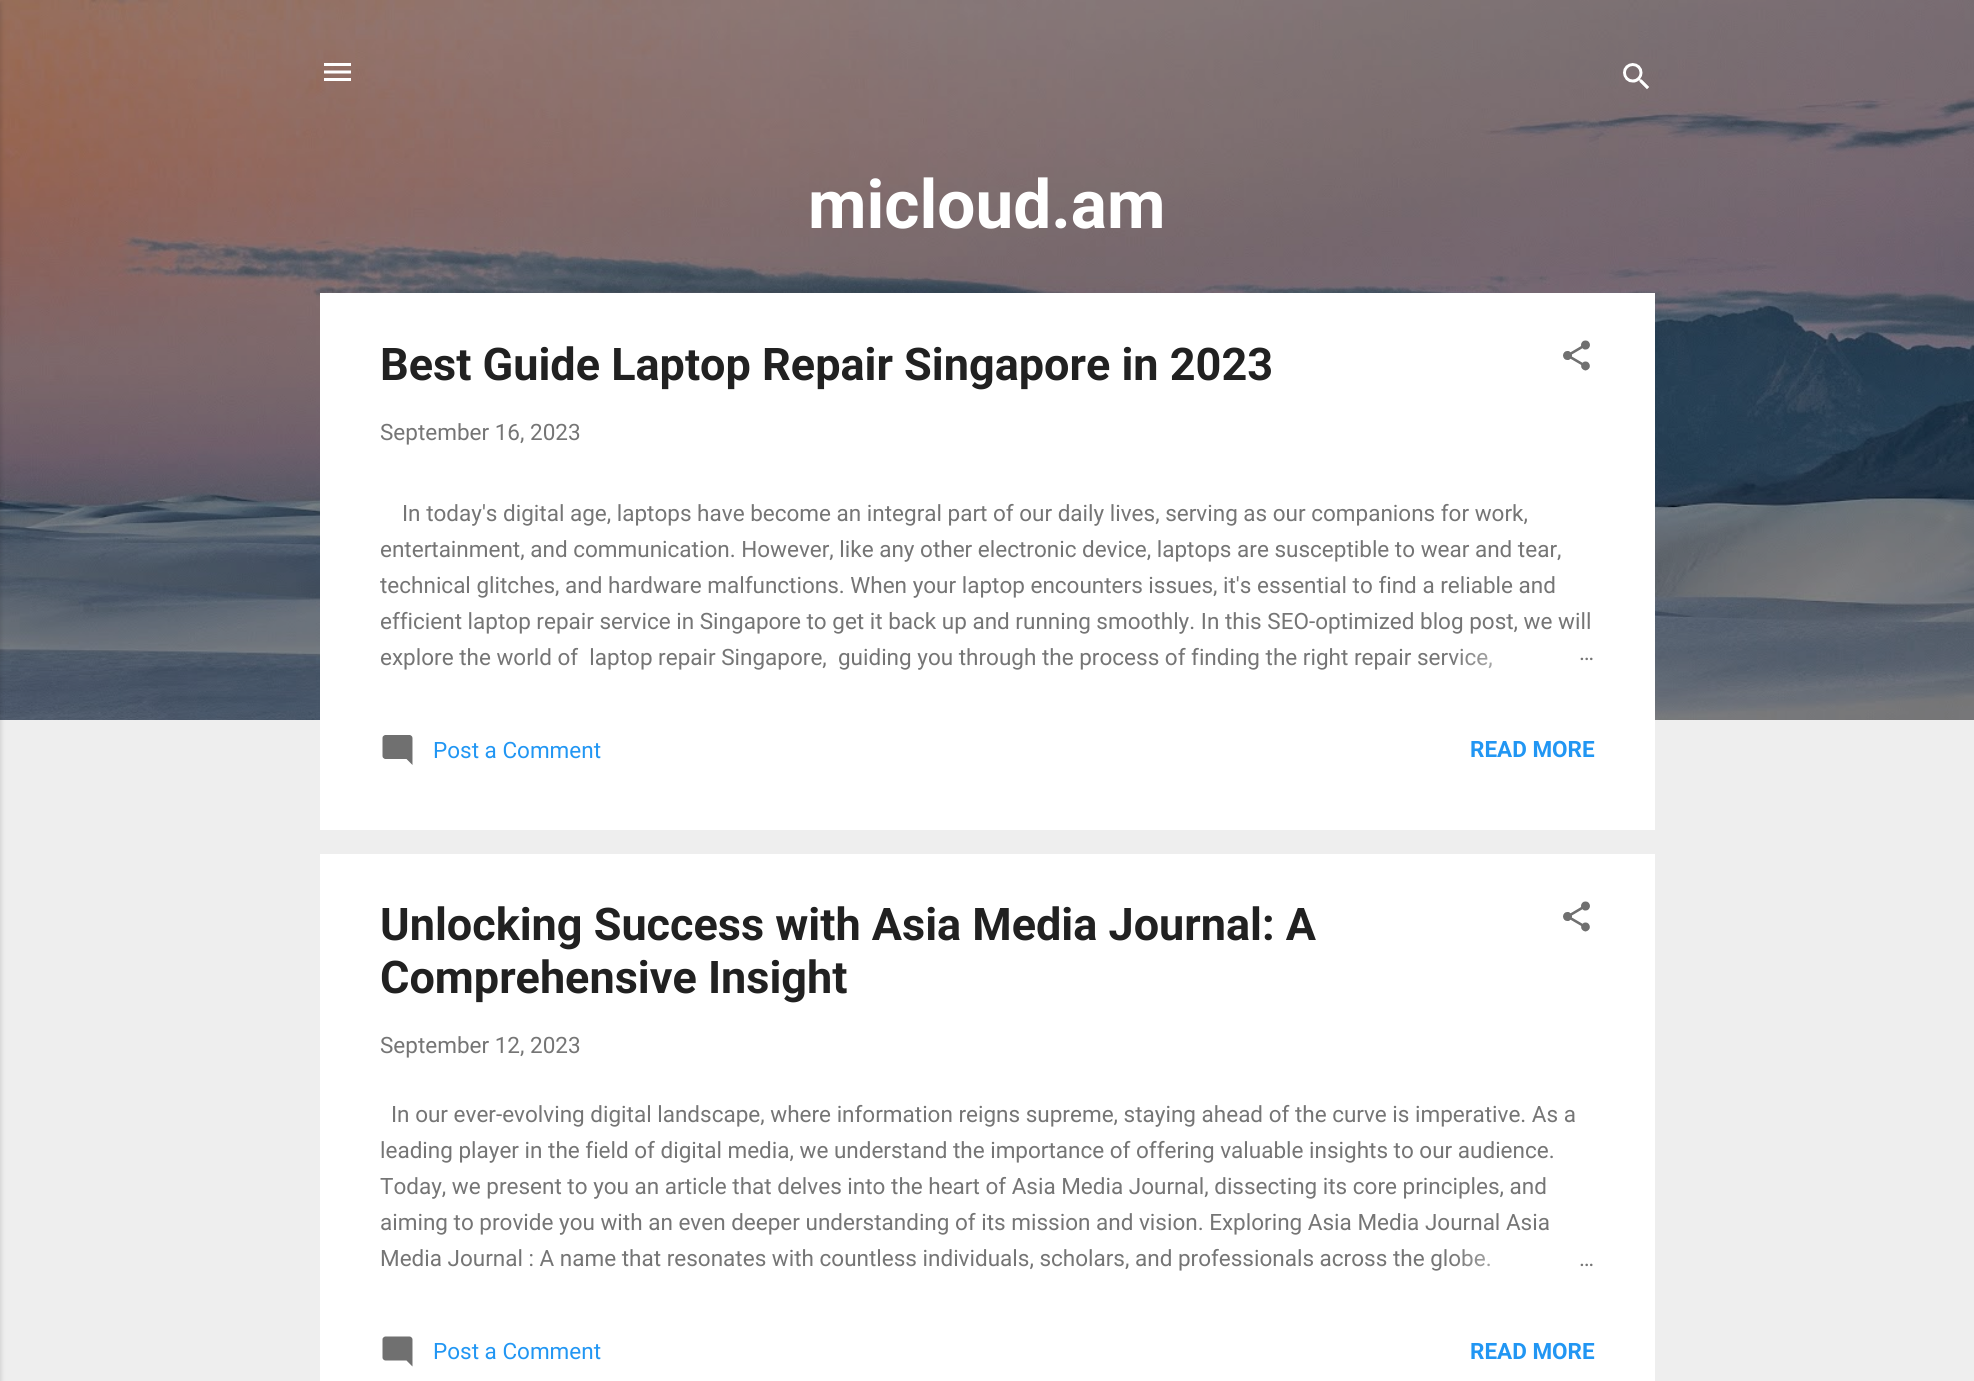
import math
import cairo

surface = cairo.ImageSurface(cairo.Format.RGB24, 1974, 1381)
ctx = cairo.Context(surface)
options = cairo.FontOptions()
options.set_hint_metrics(cairo.HintMetrics.OFF)
options.set_hint_style(cairo.HintStyle.NONE)
ctx.set_font_options(options)
ctx.set_miter_limit(4)


def ink(r, g, b):
    ctx.set_source_rgb(r / 255, g / 255, b / 255)


def write(x, y, s, family, size, color, bold=False, italic=False):
    ctx.select_font_face(family, cairo.FontSlant.ITALIC if italic else cairo.FontSlant.NORMAL, cairo.FontWeight.BOLD if bold else cairo.FontWeight.NORMAL)
    ctx.set_font_size(size)
    ink(*color)
    ctx.move_to(x, y)
    ctx.show_text(s)


def block(x, y, w, h, *color):
    ink(*color)
    ctx.rectangle(x, y, w, h)
    ctx.fill()


def round_path(x, y, w, h, r):
    ctx.new_sub_path()
    for i, (u, v) in enumerate([(x + w - r, y + h - r), (x + r, y + h - r), (x + r, y + r), (x + w - r, y + r)]):
        ctx.arc(u, v, r, i * math.pi / 2, (i + 1) * math.pi / 2)
    ctx.close_path()


def blur_box(x, y, w, h, r, blur, alpha):
    ctx.push_group_with_content(cairo.Content.ALPHA)
    ctx.set_operator(cairo.Operator.SOURCE)
    for i in range(15, -16, -2):
        e = blur * i / 6
        if min(w, h) + 2 * e > 0:
            ctx.set_source_rgba(0, 0, 0, alpha * math.erfc((i - 1) / 8.5) / 2)
            round_path(x - e, y - e, w + 2 * e, h + 2 * e, max(0, min(r + e + blur * .6, min(w, h) / 2 + e)))
            ctx.fill()
    ctx.mask(ctx.pop_group())


def paste(path, x, y, w, h):
    ctx.save()
    ctx.set_source_surface(cairo.ImageSurface.create_from_png(path), x, y)
    ctx.rectangle(x, y, w, h)
    ctx.fill()
    ctx.restore()


s1 = dict(family="Roboto", size=67.5, color=(255, 255, 255), bold=True)
s2 = dict(family="Roboto", size=45, color=(33, 33, 33), bold=True)
s3 = dict(family="Roboto", size=22.5, color=(117, 117, 117))
s4 = dict(family="Roboto", size=22.5, color=(33, 150, 243))
s5 = dict(family="Roboto", size=22.5, color=(33, 150, 243), bold=True)

ink(238, 238, 238)
ctx.paint()
paste("pic1.png", 0, 0, 1974, 720)
ink(0, 0, 0)
blur_box(-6, 2, 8, 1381, 0, 2, 0.1)
paste("pic2.png", 324, 63, 27, 18)
paste("pic3.png", 1623, 63, 26, 27)
write(808, 228, "micloud.am", **s1)
block(320, 293, 1335, 537, 255, 255, 255)
write(380, 380, "Best Guide Laptop Repair Singapore in 2023", **s2)
paste("pic4.png", 1563, 340, 27, 31)
write(380, 440, "September 16, 2023", **s3)
write(402, 521, "In today's digital age, laptops have become an integral part of our daily lives, serving as our companions for work,", **s3)
write(380, 557, "entertainment, and communication. However, like any other electronic device, laptops are susceptible to wear and tear,", **s3)
write(380, 593, "technical glitches, and hardware malfunctions. When your laptop encounters issues, it's essential to find a reliable and", **s3)
write(380, 629, "efficient laptop repair service in Singapore to get it back up and running smoothly. In this SEO-optimized blog post, we will", **s3)
write(380, 665, "explore the world of  laptop repair Singapore,  guiding you through the process of finding the right repair service,", **s3)
gradient = cairo.LinearGradient(1595, 657, 1451, 657)
gradient.add_color_stop_rgba(0, 1, 1, 1, 1)
gradient.add_color_stop_rgba(0.2, 1, 1, 1, 1)
gradient.add_color_stop_rgba(1, 1, 1, 1, 0)
ctx.set_source(gradient)
ctx.rectangle(1453, 649, 39, 19)
ctx.fill()
write(1579, 660, "…", **s3)
paste("pic5.png", 382, 735, 31, 30)
write(433, 758, "Post a Comment", **s4)
write(1470, 757, "READ MORE", **s5)
block(320, 854, 1335, 527, 255, 255, 255)
write(380, 940, "Unlocking Success with Asia Media Journal: A", **s2)
write(380, 993, "Comprehensive Insight", **s2)
paste("pic4.png", 1563, 901, 27, 31)
write(380, 1053, "September 12, 2023", **s3)
write(391, 1122, "In our ever-evolving digital landscape, where information reigns supreme, staying ahead of the curve is imperative. As a", **s3)
write(380, 1158, "leading player in the field of digital media, we understand the importance of offering valuable insights to our audience.", **s3)
write(380, 1194, "Today, we present to you an article that delves into the heart of Asia Media Journal, dissecting its core principles, and", **s3)
write(380, 1230, "aiming to provide you with an even deeper understanding of its mission and vision. Exploring Asia Media Journal Asia", **s3)
write(380, 1266, "Media Journal : A name that resonates with countless individuals, scholars, and professionals across the globe.", **s3)
gradient = cairo.LinearGradient(1595, 1259, 1451, 1259)
gradient.add_color_stop_rgba(0, 1, 1, 1, 1)
gradient.add_color_stop_rgba(0.2, 1, 1, 1, 1)
gradient.add_color_stop_rgba(1, 1, 1, 1, 0)
ctx.set_source(gradient)
ctx.rectangle(1453, 1249, 37, 18)
ctx.fill()
write(1579, 1266, "…", **s3)
paste("pic6.png", 382, 1336, 31, 31)
write(433, 1359, "Post a Comment", **s4)
write(1470, 1359, "READ MORE", **s5)
surface.write_to_png("screenshot.png")
